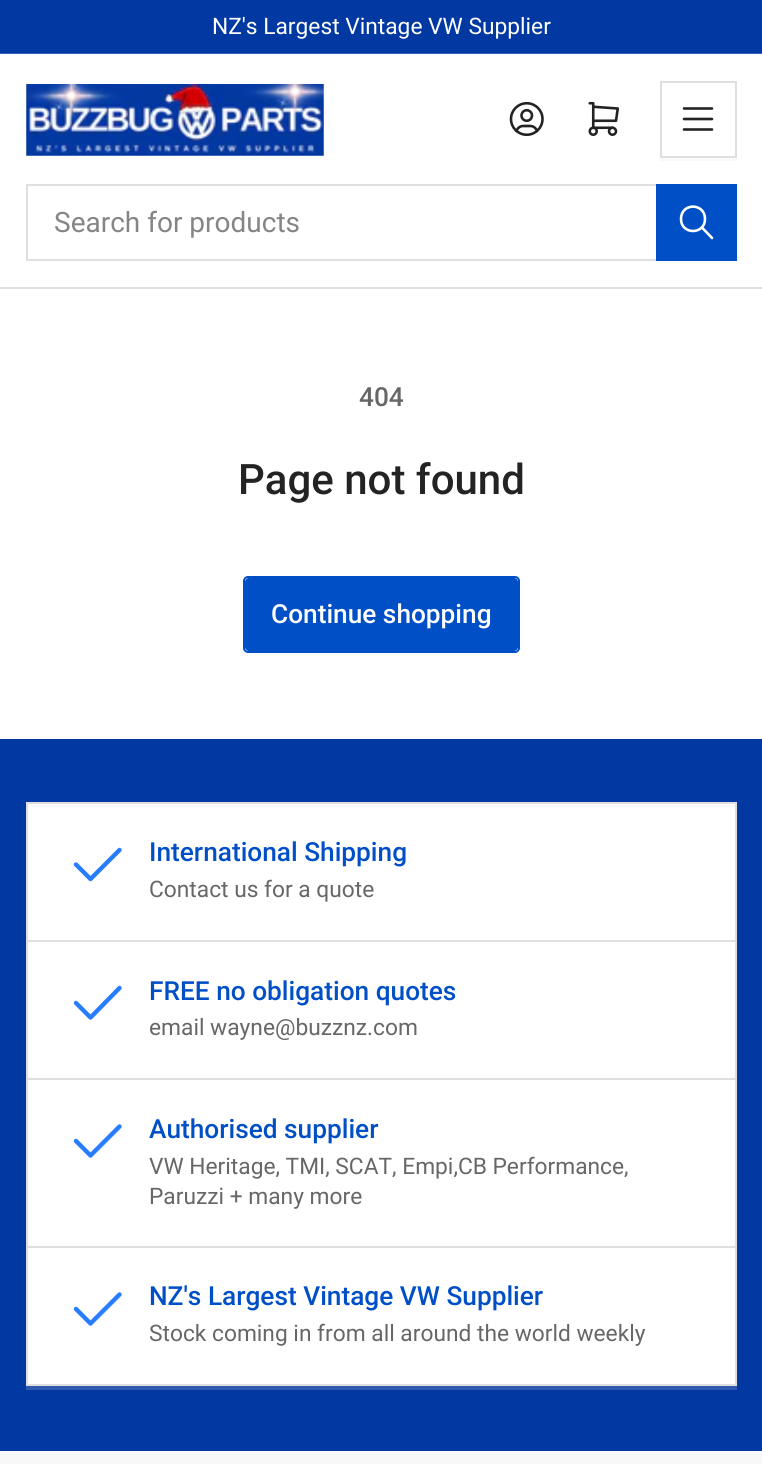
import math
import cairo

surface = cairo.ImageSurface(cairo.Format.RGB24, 762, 1464)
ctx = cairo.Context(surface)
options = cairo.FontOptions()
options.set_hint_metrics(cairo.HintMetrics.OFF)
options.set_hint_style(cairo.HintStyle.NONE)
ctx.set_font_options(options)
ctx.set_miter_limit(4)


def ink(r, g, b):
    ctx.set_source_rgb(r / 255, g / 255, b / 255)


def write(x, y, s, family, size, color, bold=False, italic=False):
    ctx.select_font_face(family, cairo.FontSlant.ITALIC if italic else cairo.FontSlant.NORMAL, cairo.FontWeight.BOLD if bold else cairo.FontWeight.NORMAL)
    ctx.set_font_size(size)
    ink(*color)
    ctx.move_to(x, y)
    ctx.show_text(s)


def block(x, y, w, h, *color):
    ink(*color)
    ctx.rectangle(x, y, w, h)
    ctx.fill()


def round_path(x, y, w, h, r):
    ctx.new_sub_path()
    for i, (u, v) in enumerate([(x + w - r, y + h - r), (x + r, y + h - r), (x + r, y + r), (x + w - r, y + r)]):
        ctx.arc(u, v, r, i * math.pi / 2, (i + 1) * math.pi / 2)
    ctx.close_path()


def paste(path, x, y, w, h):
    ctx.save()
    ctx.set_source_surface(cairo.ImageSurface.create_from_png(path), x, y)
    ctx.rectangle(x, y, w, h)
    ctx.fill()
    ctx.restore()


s1 = dict(family="Roboto", size=22.75, color=(255, 255, 255))
s2 = dict(family="Roboto", size=28, color=(133, 133, 133))
s3 = dict(family="Roboto Medium", size=26.25, color=(103, 103, 103))
s4 = dict(family="Roboto Medium", size=42, color=(35, 35, 35))
s5 = dict(family="Roboto Medium", size=26.25, color=(255, 255, 255))
s6 = dict(family="Roboto Medium", size=26.25, color=(0, 79, 199))
s7 = dict(family="Roboto", size=22.75, color=(103, 103, 103))

ink(255, 255, 255)
ctx.paint()
block(0, 0, 762, 53, 2, 56, 162)
block(0, 53, 762, 1, 53, 96, 181)
write(212, 34, "NZ's Largest Vintage VW Supplier", **s1)
block(0, 287, 762, 2, 223, 223, 223)
paste("pic1.png", 26, 84, 298, 72)
paste("pic2.png", 509, 101, 35, 36)
paste("pic3.png", 588, 101, 31, 35)
ink(249, 249, 249)
ctx.new_path()
ctx.move_to(660, 158)
ctx.line_to(660, 161)
ctx.line_to(737, 161)
ctx.line_to(737, 84)
ctx.line_to(737, 158)
ctx.close_path()
ctx.fill()
ctx.rectangle(661, 82, 75, 75)
ink(223, 223, 223)
ctx.stroke()
ctx.new_path()
ctx.move_to(684, 108.5)
ctx.line_to(712, 108.5)
ctx.move_to(684, 119)
ctx.line_to(712, 119)
ctx.move_to(684, 129.5)
ctx.line_to(712, 129.5)
ink(35, 35, 35)
ctx.set_line_width(2.6)
ctx.set_line_cap(cairo.LineCap.ROUND)
ctx.set_line_join(cairo.LineJoin.ROUND)
ctx.stroke()
ctx.rectangle(27, 185, 709, 75)
ink(223, 223, 223)
ctx.set_line_width(2)
ctx.set_line_cap(cairo.LineCap.BUTT)
ctx.set_line_join(cairo.LineJoin.MITER)
ctx.stroke()
write(54, 232, "Search for products", **s2)
ctx.rectangle(657, 185, 79, 75)
ink(0, 79, 199)
ctx.stroke()
block(658, 186, 77, 73, 0, 79, 199)
ctx.new_path()
ctx.move_to(681, 219)
ctx.curve_to(681, 235, 705, 235, 705, 219)
ctx.curve_to(705, 202.5, 681, 202.5, 681, 219)
ctx.move_to(712, 238)
ctx.line_to(702, 227.5)
ink(255, 255, 255)
ctx.set_line_width(2.6)
ctx.set_line_cap(cairo.LineCap.ROUND)
ctx.set_line_join(cairo.LineJoin.ROUND)
ctx.stroke()
write(359, 406, "404", **s3)
write(238, 494, "Page not found", **s4)
round_path(244, 577, 275, 75, 4)
ink(0, 79, 199)
ctx.set_line_width(2)
ctx.set_line_cap(cairo.LineCap.BUTT)
ctx.set_line_join(cairo.LineJoin.MITER)
ctx.stroke()
round_path(245, 578, 273, 73, 4)
ctx.fill()
write(271, 623, "Continue shopping", **s5)
block(0, 739, 762, 712, 2, 56, 162)
ink(255, 255, 255)
ctx.rectangle(27, 803, 709, 138)
ctx.fill_preserve()
ink(223, 223, 223)
ctx.stroke()
ctx.new_path()
ctx.move_to(76, 864.5)
ctx.line_to(90.5, 879)
ctx.line_to(119.5, 850)
ink(40, 125, 255)
ctx.set_line_width(4.4)
ctx.set_line_cap(cairo.LineCap.ROUND)
ctx.set_line_join(cairo.LineJoin.ROUND)
ctx.stroke()
write(149, 861, "International Shipping", **s6)
write(149, 897, "Contact us for a quote", **s7)
ink(255, 255, 255)
ctx.rectangle(27, 941, 709, 138)
ctx.fill_preserve()
ink(223, 223, 223)
ctx.set_line_width(2)
ctx.set_line_cap(cairo.LineCap.BUTT)
ctx.set_line_join(cairo.LineJoin.MITER)
ctx.stroke()
ctx.new_path()
ctx.move_to(76, 1003)
ctx.line_to(90.5, 1017.5)
ctx.line_to(119.5, 988)
ink(40, 125, 255)
ctx.set_line_width(4.4)
ctx.set_line_cap(cairo.LineCap.ROUND)
ctx.set_line_join(cairo.LineJoin.ROUND)
ctx.stroke()
write(149, 1000, "FREE no obligation quotes", **s6)
write(149, 1035, "email wayne@buzznz.com", **s7)
ink(255, 255, 255)
ctx.rectangle(27, 1079, 709, 168)
ctx.fill_preserve()
ink(223, 223, 223)
ctx.set_line_width(2)
ctx.set_line_cap(cairo.LineCap.BUTT)
ctx.set_line_join(cairo.LineJoin.MITER)
ctx.stroke()
ctx.new_path()
ctx.move_to(76, 1141)
ctx.line_to(90.5, 1155.5)
ctx.line_to(119.5, 1126.5)
ink(40, 125, 255)
ctx.set_line_width(4.4)
ctx.set_line_cap(cairo.LineCap.ROUND)
ctx.set_line_join(cairo.LineJoin.ROUND)
ctx.stroke()
write(149, 1138, "Authorised supplier", **s6)
write(149, 1174, "VW Heritage, TMI, SCAT, Empi,CB Performance,", **s7)
write(149, 1204, "Paruzzi + many more", **s7)
ink(46, 89, 174)
ctx.new_path()
ctx.move_to(26, 1250)
ctx.line_to(26, 1390)
ctx.line_to(737, 1390)
ctx.line_to(737, 1250)
ctx.line_to(737, 1386)
ctx.line_to(26, 1386)
ctx.close_path()
ctx.fill()
ink(255, 255, 255)
ctx.rectangle(27, 1247, 709, 138)
ctx.fill_preserve()
ink(223, 223, 223)
ctx.set_line_width(2)
ctx.set_line_cap(cairo.LineCap.BUTT)
ctx.set_line_join(cairo.LineJoin.MITER)
ctx.stroke()
ctx.new_path()
ctx.move_to(76, 1309)
ctx.line_to(90.5, 1323.5)
ctx.line_to(119.5, 1294.5)
ink(40, 125, 255)
ctx.set_line_width(4.4)
ctx.set_line_cap(cairo.LineCap.ROUND)
ctx.set_line_join(cairo.LineJoin.ROUND)
ctx.stroke()
write(149, 1305, "NZ's Largest Vintage VW Supplier", **s6)
write(149, 1341, "Stock coming in from all around the world weekly", **s7)
block(0, 1451, 762, 13, 248, 248, 248)
surface.write_to_png("screenshot.png")
